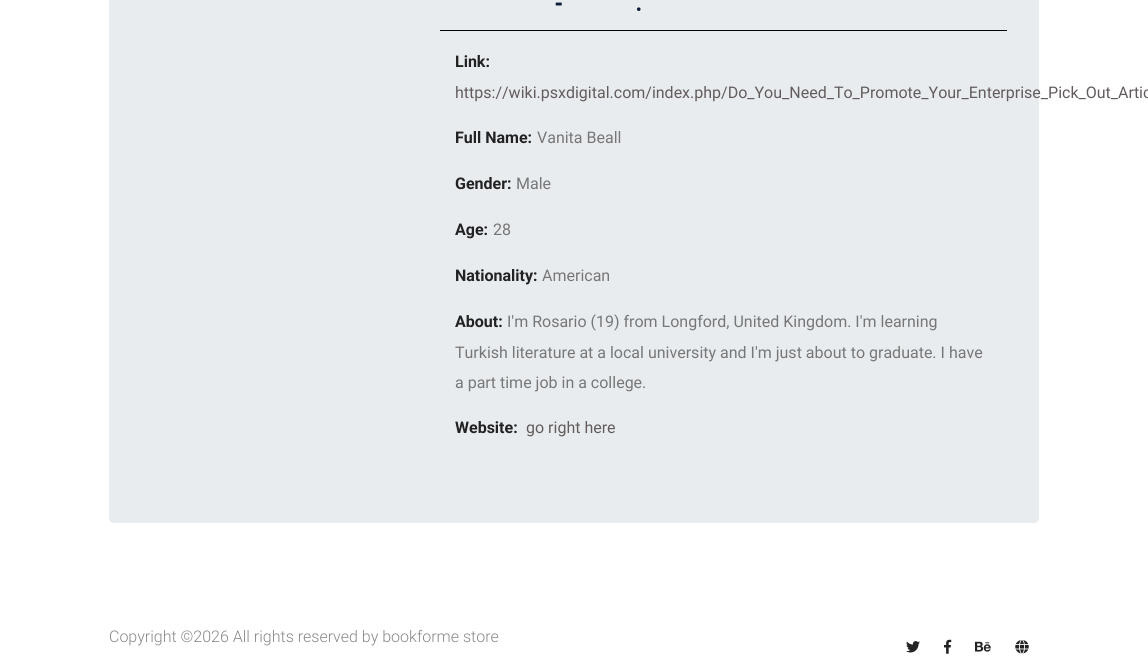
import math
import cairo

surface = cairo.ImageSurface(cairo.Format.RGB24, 1148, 664)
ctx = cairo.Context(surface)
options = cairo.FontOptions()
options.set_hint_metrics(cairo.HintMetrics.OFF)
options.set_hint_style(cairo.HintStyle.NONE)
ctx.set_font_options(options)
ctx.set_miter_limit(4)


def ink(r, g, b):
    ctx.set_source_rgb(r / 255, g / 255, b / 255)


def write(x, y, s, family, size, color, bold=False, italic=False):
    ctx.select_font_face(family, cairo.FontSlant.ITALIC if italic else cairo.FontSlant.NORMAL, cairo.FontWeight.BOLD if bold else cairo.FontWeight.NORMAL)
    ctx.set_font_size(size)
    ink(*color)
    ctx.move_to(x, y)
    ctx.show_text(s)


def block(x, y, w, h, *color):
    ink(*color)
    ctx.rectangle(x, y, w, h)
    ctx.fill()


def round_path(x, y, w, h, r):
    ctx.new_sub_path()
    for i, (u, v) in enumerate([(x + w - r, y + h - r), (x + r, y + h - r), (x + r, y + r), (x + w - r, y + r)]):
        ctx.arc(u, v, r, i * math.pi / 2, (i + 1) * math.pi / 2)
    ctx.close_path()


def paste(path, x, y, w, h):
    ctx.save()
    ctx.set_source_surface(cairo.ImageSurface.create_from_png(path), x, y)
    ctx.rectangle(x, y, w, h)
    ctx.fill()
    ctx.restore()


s1 = dict(family="Josefin Sans Medium", size=32, color=(11, 28, 57))
s2 = dict(family="Roboto", size=16, color=(34, 34, 34), bold=True)
s3 = dict(family="Roboto", size=16, color=(99, 92, 92))
s4 = dict(family="Roboto", size=16, color=(119, 119, 119))
s5 = dict(family="Roboto Light", size=16, color=(136, 136, 136))

ink(255, 255, 255)
ctx.paint()
ink(233, 236, 239)
round_path(109, -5, 930, 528, 5)
ctx.fill()
block(440, 30, 567, 1, 0, 0, 0)
write(554, 11, "-", **s1)
write(636, 11, ".", **s1)
write(455, 67, "Link:", **s2)
write(455, 98, "https://wiki.psxdigital.com/index.php/Do_You_Need_To_Promote_Your_Enterprise_Pick_Out_Artic", **s3)
write(455, 143, "Full Name:", **s2)
write(537, 143, "Vanita Beall", **s4)
write(455, 189, "Gender:", **s2)
write(516, 189, "Male", **s4)
write(455, 235, "Age:", **s2)
write(493, 235, "28", **s4)
write(455, 281, "Nationality:", **s2)
write(542, 281, "American", **s4)
write(455, 327, "About:", **s2)
write(507, 327, "I'm Rosario (19) from Longford, United Kingdom. I'm learning", **s4)
write(455, 358, "Turkish literature at a local university and I'm just about to graduate. I have", **s4)
write(455, 388, "a part time job in a college.", **s4)
write(455, 433, "Website:", **s2)
write(526, 433, "go right here", **s3)
write(109, 642, "Copyright ©2026 All rights reserved by bookforme store", **s5)
paste("pic1.png", 906, 641, 14, 12)
paste("pic2.png", 944, 639, 8, 15)
paste("pic3.png", 975, 641, 16, 11)
paste("pic4.png", 1015, 640, 14, 14)
surface.write_to_png("screenshot.png")
